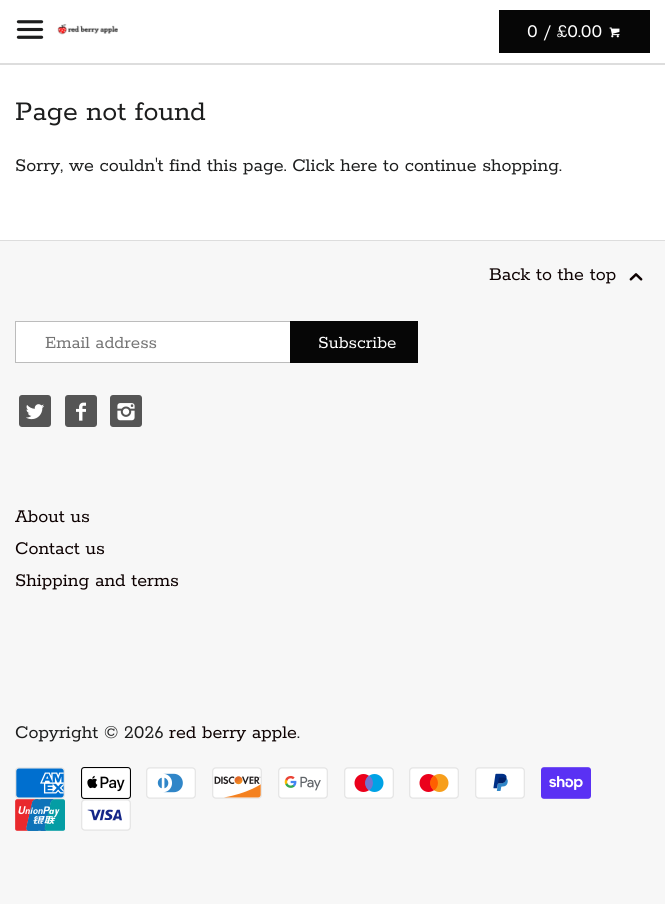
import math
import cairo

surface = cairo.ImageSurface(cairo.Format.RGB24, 665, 904)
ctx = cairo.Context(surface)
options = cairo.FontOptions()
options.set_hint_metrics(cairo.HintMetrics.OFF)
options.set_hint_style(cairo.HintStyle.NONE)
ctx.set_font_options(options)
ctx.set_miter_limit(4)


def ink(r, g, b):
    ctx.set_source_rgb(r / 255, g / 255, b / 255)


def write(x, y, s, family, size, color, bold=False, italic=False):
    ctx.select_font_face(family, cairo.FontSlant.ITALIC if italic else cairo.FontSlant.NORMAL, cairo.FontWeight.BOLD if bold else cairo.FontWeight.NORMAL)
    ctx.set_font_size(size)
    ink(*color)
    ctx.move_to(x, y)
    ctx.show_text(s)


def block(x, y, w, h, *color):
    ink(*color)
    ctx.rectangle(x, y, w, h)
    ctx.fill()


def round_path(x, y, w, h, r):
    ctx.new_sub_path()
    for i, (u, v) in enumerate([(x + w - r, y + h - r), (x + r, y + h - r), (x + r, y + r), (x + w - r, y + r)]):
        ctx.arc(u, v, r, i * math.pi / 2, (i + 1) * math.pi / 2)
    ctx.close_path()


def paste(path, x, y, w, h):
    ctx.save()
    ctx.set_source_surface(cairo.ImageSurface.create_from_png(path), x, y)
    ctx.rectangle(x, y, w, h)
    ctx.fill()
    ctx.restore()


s1 = dict(family="Rokkitt", size=20, color=(255, 255, 255))
s2 = dict(family="Rokkitt", size=30, color=(28, 29, 29))
s3 = dict(family="Rokkitt", size=20, color=(28, 29, 29))
s4 = dict(family="Rokkitt", size=20, color=(13, 1, 1))
s5 = dict(family="Rokkitt", size=19, color=(117, 117, 117))
s6 = dict(family="Rokkitt", size=19, color=(255, 255, 255))

ink(247, 247, 247)
ctx.paint()
block(0, 0, 665, 240, 255, 255, 255)
paste("pic1.png", 16, 20, 28, 19)
paste("pic2.png", 57, 24, 61, 11)
block(499, 10, 151, 43, 6, 6, 6)
write(527, 37, "0 / £0.00", **s1)
paste("pic3.png", 609, 27, 11, 11)
block(0, 63, 665, 2, 221, 221, 221)
write(15, 120, "Page not found", **s2)
write(15, 171, "Sorry, we couldn't find this page. Click here to continue shopping.", **s3)
block(0, 240, 665, 1, 221, 221, 221)
write(489, 280, "Back to the top", **s4)
paste("pic4.png", 629, 273, 14, 8)
block(16, 322, 274, 40, 255, 255, 255)
ctx.rectangle(15.5, 321.5, 401, 41)
ink(188, 188, 188)
ctx.set_line_width(1)
ctx.stroke()
write(45, 348, "Email address", **s5)
block(290, 321, 128, 42, 6, 6, 6)
write(318, 348, "Subscribe", **s6)
ink(85, 85, 85)
round_path(19, 395, 32, 32, 3)
ctx.fill()
paste("pic5.png", 26, 404, 18, 16)
round_path(65, 395, 32, 32, 3)
ctx.fill()
paste("pic6.png", 76, 402, 10, 19)
round_path(110, 395, 32, 32, 3)
ctx.fill()
paste("pic7.png", 117, 403, 18, 18)
write(15, 522, "About us", **s4)
write(15, 554, "Contact us", **s4)
write(15, 586, "Shipping and terms", **s4)
write(15, 738, "Copyright © 2026", **s3)
write(169, 738, "red berry apple", **s4)
write(297, 738, ".", **s3)
paste("pic8.png", 15, 767, 50, 32)
paste("pic9.png", 81, 767, 50, 32)
paste("pic10.png", 146, 767, 50, 32)
paste("pic11.png", 212, 767, 50, 32)
paste("pic12.png", 278, 767, 50, 32)
paste("pic13.png", 344, 767, 50, 32)
paste("pic14.png", 409, 767, 50, 32)
paste("pic15.png", 475, 767, 50, 32)
paste("pic16.png", 541, 767, 50, 32)
paste("pic17.png", 15, 799, 50, 32)
paste("pic18.png", 81, 799, 50, 32)
surface.write_to_png("screenshot.png")
